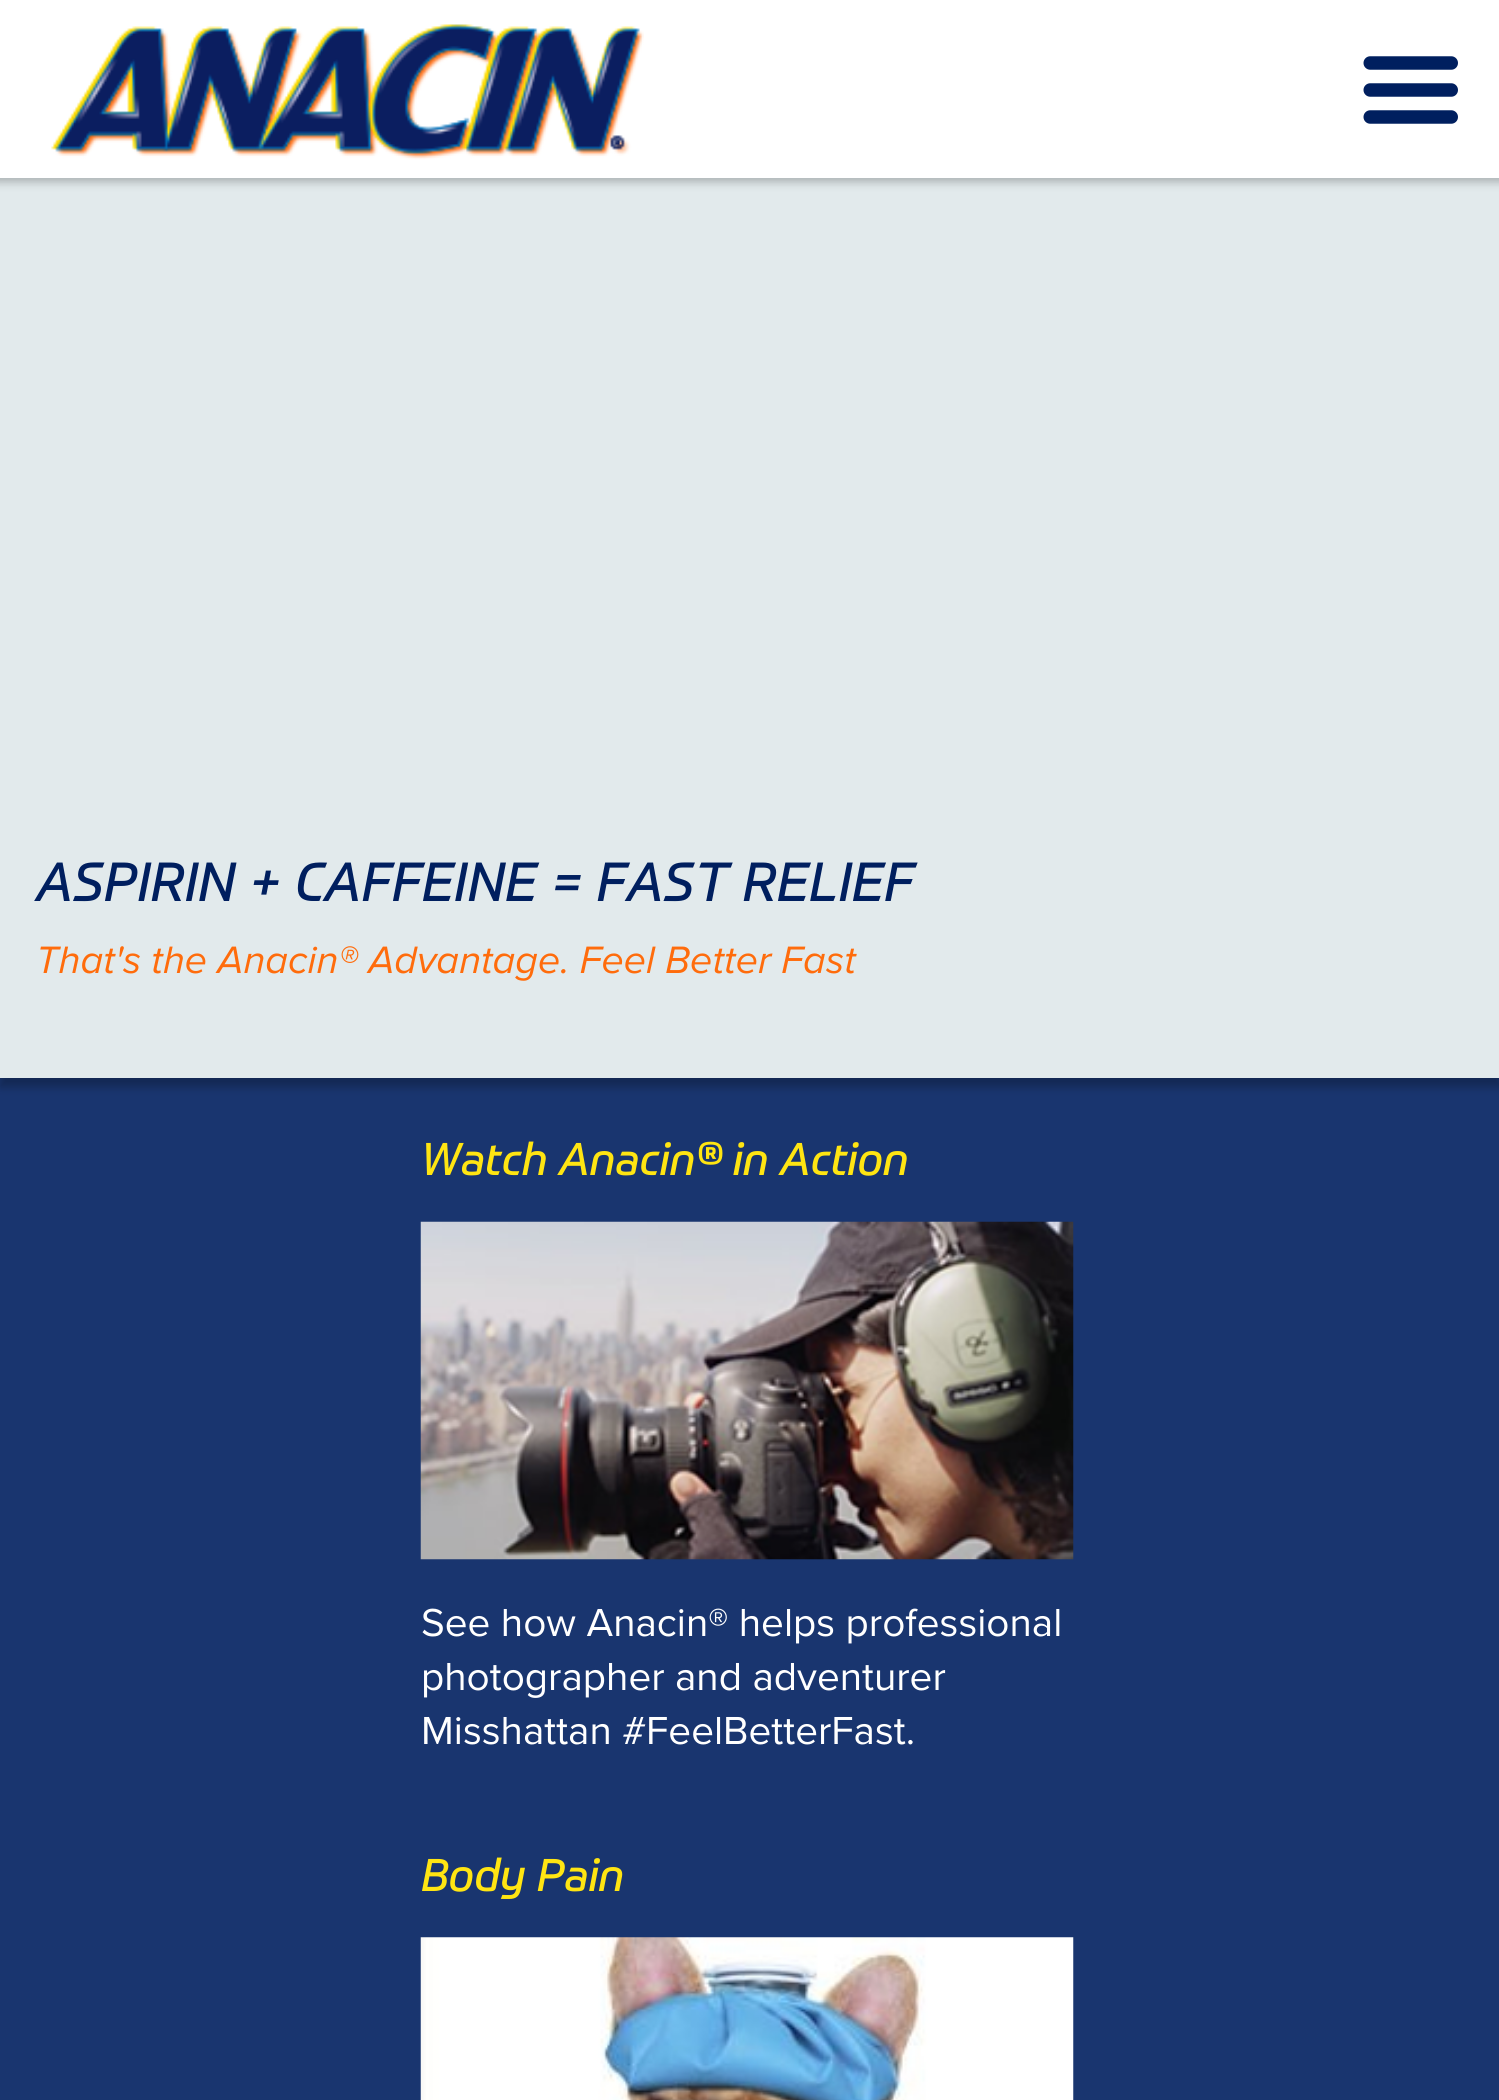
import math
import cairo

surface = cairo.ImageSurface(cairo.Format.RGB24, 1499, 2100)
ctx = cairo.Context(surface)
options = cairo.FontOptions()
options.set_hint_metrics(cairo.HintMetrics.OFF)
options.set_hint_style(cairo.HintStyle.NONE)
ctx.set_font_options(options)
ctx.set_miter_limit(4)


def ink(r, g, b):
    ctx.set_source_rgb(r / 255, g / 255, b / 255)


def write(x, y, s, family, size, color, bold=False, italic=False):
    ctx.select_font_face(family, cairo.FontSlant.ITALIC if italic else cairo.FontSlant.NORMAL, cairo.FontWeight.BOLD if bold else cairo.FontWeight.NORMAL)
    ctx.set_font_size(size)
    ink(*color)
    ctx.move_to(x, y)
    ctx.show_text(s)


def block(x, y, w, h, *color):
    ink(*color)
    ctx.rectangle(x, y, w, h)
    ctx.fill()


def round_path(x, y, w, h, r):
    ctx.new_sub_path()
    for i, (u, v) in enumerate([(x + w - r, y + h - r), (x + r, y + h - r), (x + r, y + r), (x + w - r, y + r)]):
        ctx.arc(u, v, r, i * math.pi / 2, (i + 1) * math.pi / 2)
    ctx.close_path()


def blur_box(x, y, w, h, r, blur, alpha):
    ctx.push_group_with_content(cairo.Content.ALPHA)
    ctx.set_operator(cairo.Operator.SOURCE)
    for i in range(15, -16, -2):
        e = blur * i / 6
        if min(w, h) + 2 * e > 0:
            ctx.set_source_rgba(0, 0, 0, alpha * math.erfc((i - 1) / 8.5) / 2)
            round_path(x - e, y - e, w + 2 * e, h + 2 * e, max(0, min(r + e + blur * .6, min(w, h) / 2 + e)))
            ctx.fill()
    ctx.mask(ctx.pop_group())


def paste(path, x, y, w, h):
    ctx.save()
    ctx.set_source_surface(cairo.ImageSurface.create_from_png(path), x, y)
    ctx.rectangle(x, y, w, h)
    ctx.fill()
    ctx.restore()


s1 = dict(family="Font", size=54, color=(0, 31, 95), italic=True)
s2 = dict(family="Proxima Nova", size=39.6, color=(255, 108, 12), italic=True)
s3 = dict(family="Font", size=45, color=(255, 229, 18), italic=True)
s4 = dict(family="Proxima Nova", size=40.5, color=(255, 255, 255))

ink(25, 53, 111)
ctx.paint()
ink(0, 0, 0)
blur_box(0, 187, 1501, 900, 0, 4.5, 0.25)
block(0, 178, 1499, 900, 226, 234, 236)
ink(0, 0, 0)
blur_box(-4, -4, 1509, 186, 0, 4.5, 0.25)
block(0, 0, 1499, 178, 255, 255, 255)
paste("pic1.png", 51, 24, 593, 136)
paste("pic2.png", 1363, 56, 95, 68)
write(36, 901, "ASPIRIN + CAFFEINE = FAST RELIEF", **s1)
write(36, 973, "That's the Anacin® Advantage. Feel Better Fast", **s2)
write(421, 1175, "Watch Anacin® in Action", **s3)
paste("pic3.png", 420, 1221, 654, 339)
write(421, 1636, "See how Anacin® helps professional", **s4)
write(421, 1690, "photographer and adventurer", **s4)
write(421, 1744, "Misshattan #FeelBetterFast.", **s4)
write(421, 1891, "Body Pain", **s3)
paste("pic4.png", 420, 1937, 654, 163)
surface.write_to_png("screenshot.png")
